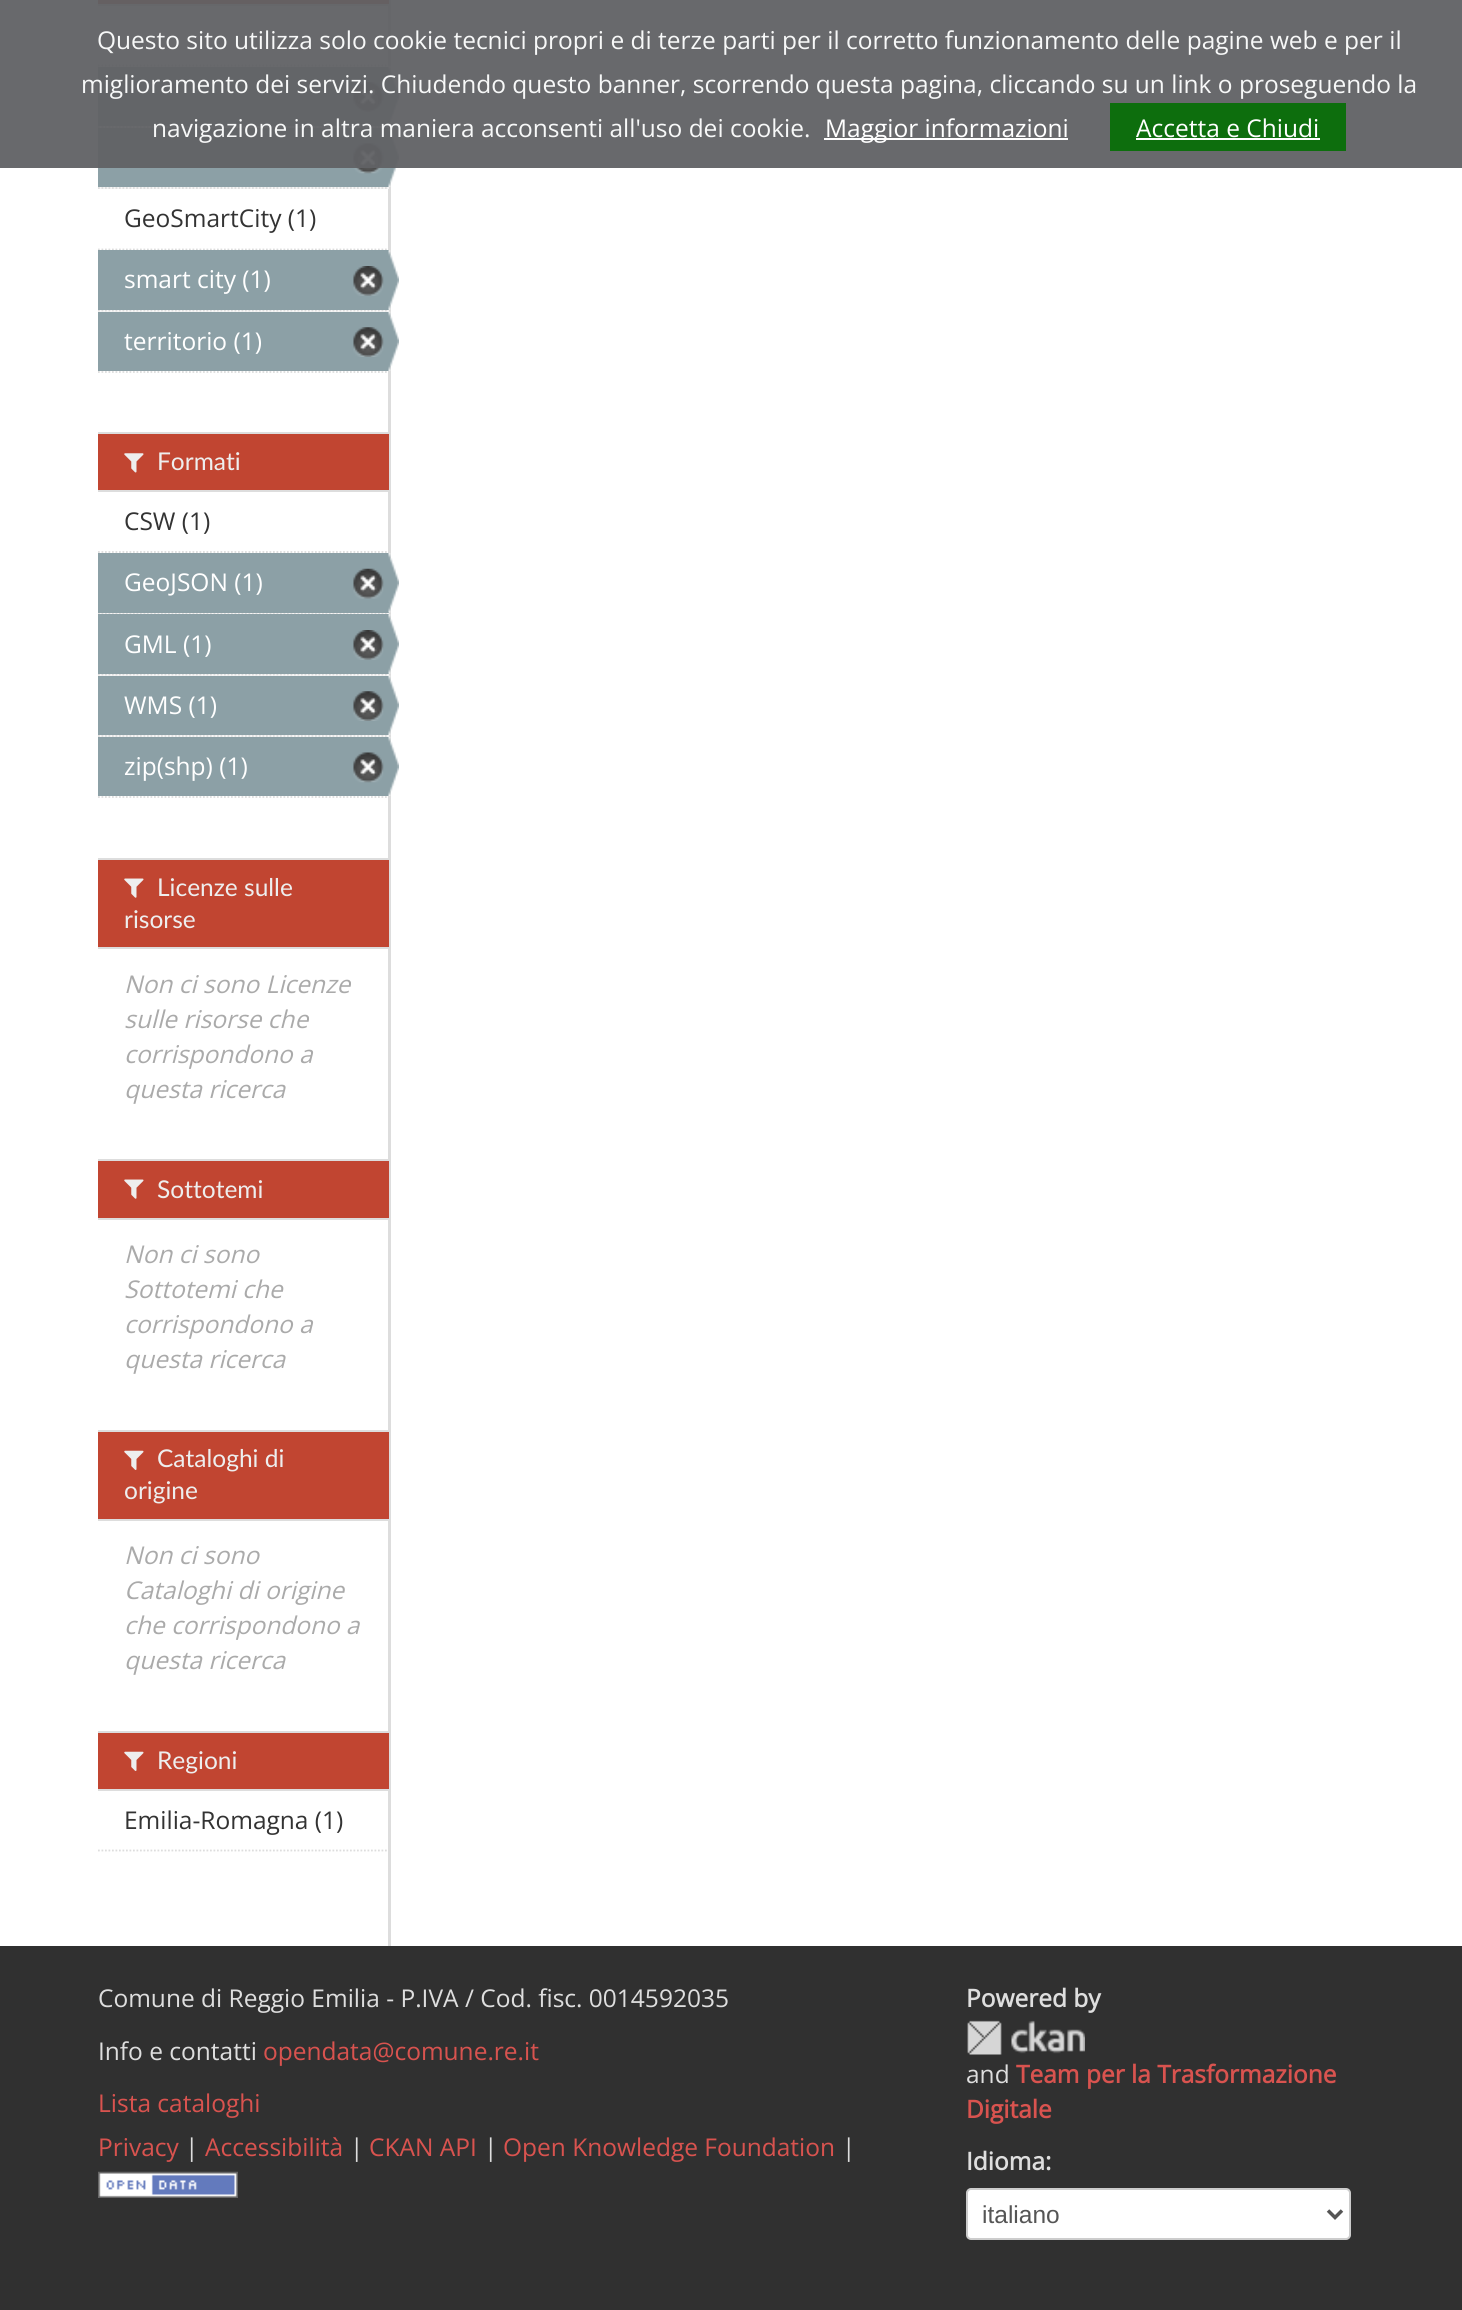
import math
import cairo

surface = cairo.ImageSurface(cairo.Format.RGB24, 1462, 2310)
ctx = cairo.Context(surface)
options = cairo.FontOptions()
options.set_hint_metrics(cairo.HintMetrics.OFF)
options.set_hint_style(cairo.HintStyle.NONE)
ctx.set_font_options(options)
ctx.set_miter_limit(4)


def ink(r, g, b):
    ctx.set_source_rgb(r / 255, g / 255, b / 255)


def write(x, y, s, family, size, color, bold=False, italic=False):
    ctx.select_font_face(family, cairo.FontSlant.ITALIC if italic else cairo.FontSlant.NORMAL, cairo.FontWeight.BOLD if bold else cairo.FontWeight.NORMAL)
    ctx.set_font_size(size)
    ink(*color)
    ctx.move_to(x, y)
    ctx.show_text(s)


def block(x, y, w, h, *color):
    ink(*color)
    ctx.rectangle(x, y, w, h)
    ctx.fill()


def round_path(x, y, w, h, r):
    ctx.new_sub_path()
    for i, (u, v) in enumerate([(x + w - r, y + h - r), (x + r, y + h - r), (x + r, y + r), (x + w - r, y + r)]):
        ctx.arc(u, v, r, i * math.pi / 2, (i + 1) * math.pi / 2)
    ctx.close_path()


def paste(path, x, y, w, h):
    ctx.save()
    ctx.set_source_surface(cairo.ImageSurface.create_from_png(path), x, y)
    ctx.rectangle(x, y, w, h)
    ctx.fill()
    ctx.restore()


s1 = dict(family="Open Sans", size=24.5, color=(247, 248, 248))
s2 = dict(family="Open Sans", size=24.5, color=(255, 255, 255))
s3 = dict(family="Open Sans", size=24.5, color=(51, 51, 51))
s4 = dict(family="Lato", size=24.5, color=(238, 238, 238))
s5 = dict(family="Open Sans", size=24.5, color=(170, 170, 170), italic=True)
s6 = dict(family="Open Sans", size=24.5, color=(222, 222, 222))
s7 = dict(family="Open Sans", size=24.5, color=(217, 83, 79))
s8 = dict(family="Open Sans", size=24.5, color=(222, 222, 222), bold=True)
s9 = dict(family="Open Sans", size=24.5, color=(217, 83, 79), bold=True)
s10 = dict(family="Liberation Sans", size=24.5, color=(85, 85, 85))

ink(255, 255, 255)
ctx.paint()
block(388, 0, 3, 1946, 221, 221, 221)
block(98, 0, 291, 4, 193, 69, 49)
block(98, 4, 291, 2, 221, 221, 221)
ctx.new_path()
ctx.move_to(98, 65.5)
ctx.line_to(388.5, 65.5)
ctx.set_line_width(1.8)
ctx.set_dash([1.75, 1.75])
ctx.stroke()
block(98, 126, 291, 2, 246, 246, 246)
ctx.new_path()
ctx.move_to(98, 127)
ctx.line_to(388.5, 127)
ink(221, 221, 221)
ctx.stroke()
block(98, 67, 291, 59, 140, 160, 166)
paste("pic1.png", 353, 82, 31, 30)
paste("pic2.png", 388, 66, 11, 60)
block(98, 128, 291, 59, 140, 160, 166)
paste("pic3.png", 353, 143, 31, 31)
paste("pic4.png", 388, 128, 11, 59)
ctx.set_source_rgba(0.38, 0.384, 0.396, 0.95)
ctx.rectangle(0, 0, 1462, 168)
ctx.fill()
write(97, 49, "Questo sito utilizza solo cookie tecnici propri e di terze parti per il corretto funzionamento delle pagine web e per il", **s1)
write(81, 93, "miglioramento dei servizi. Chiudendo questo banner, scorrendo questa pagina, cliccando su un link o proseguendo la", **s1)
write(152, 137, "navigazione in altra maniera acconsenti all'uso dei cookie.", **s1)
block(824, 138, 244, 2, 255, 255, 255)
write(825, 137, "Maggior informazioni", **s2)
block(1110, 103, 236, 48, 13, 110, 13)
write(1136, 137, "Accetta e Chiudi", **s2)
block(1136, 138, 184, 2, 255, 255, 255)
block(98, 187, 291, 2, 246, 246, 246)
ctx.new_path()
ctx.move_to(98, 188)
ctx.line_to(388.5, 188)
ink(221, 221, 221)
ctx.stroke()
ctx.new_path()
ctx.move_to(98, 249.5)
ctx.line_to(388.5, 249.5)
ctx.stroke()
write(124, 227, "GeoSmartCity (1)", **s3)
block(98, 310, 291, 2, 246, 246, 246)
ctx.new_path()
ctx.move_to(98, 310.5)
ctx.line_to(388.5, 310.5)
ink(221, 221, 221)
ctx.stroke()
block(98, 250, 291, 60, 140, 160, 166)
write(124, 288, "smart city (1)", **s2)
paste("pic5.png", 353, 266, 31, 30)
paste("pic6.png", 388, 250, 11, 60)
block(98, 312, 291, 59, 140, 160, 166)
write(124, 350, "territorio (1)", **s2)
paste("pic1.png", 353, 327, 31, 30)
paste("pic7.png", 388, 311, 11, 60)
ctx.new_path()
ctx.move_to(98, 372)
ctx.line_to(388.5, 372)
ink(221, 221, 221)
ctx.stroke()
block(98, 434, 291, 56, 193, 69, 49)
block(98, 432, 291, 2, 221, 221, 221)
block(98, 490, 291, 2, 221, 221, 221)
paste("pic8.png", 124, 453, 20, 20)
write(157, 470, "Formati", **s4)
ctx.new_path()
ctx.move_to(98, 552)
ctx.line_to(388.5, 552)
ink(221, 221, 221)
ctx.stroke()
write(124, 530, "CSW (1)", **s3)
block(99, 613, 290, 1, 246, 246, 246)
ctx.new_path()
ctx.move_to(98, 613.5)
ctx.line_to(388.5, 613.5)
ink(221, 221, 221)
ctx.stroke()
block(98, 553, 291, 60, 140, 160, 166)
write(124, 591, "GeoJSON (1)", **s2)
paste("pic9.png", 353, 568, 31, 31)
paste("pic10.png", 388, 553, 11, 60)
block(98, 674, 291, 2, 246, 246, 246)
ctx.new_path()
ctx.move_to(98, 674.5)
ctx.line_to(388.5, 674.5)
ink(221, 221, 221)
ctx.stroke()
block(98, 614, 291, 60, 140, 160, 166)
write(124, 653, "GML (1)", **s2)
paste("pic5.png", 353, 630, 31, 30)
paste("pic11.png", 388, 614, 11, 60)
block(98, 735, 291, 2, 246, 246, 246)
ctx.new_path()
ctx.move_to(98, 736)
ctx.line_to(388.5, 736)
ink(221, 221, 221)
ctx.stroke()
block(98, 676, 291, 59, 140, 160, 166)
write(124, 714, "WMS (1)", **s2)
paste("pic1.png", 353, 691, 31, 30)
paste("pic7.png", 388, 675, 11, 60)
block(98, 737, 291, 59, 140, 160, 166)
write(124, 775, "zip(shp) (1)", **s2)
paste("pic3.png", 353, 752, 31, 31)
paste("pic4.png", 388, 737, 11, 59)
ctx.new_path()
ctx.move_to(98, 797)
ctx.line_to(388.5, 797)
ink(221, 221, 221)
ctx.stroke()
block(98, 860, 291, 87, 193, 69, 49)
block(98, 858, 291, 2, 221, 221, 221)
block(98, 947, 291, 2, 221, 221, 221)
paste("pic12.png", 124, 878, 20, 20)
write(157, 896, "Licenze sulle", **s4)
write(124, 928, "risorse", **s4)
write(124, 993, "Non ci sono Licenze", **s5)
write(124, 1028, "sulle risorse che", **s5)
write(124, 1063, "corrispondono a", **s5)
write(124, 1098, "questa ricerca", **s5)
block(98, 1161, 291, 57, 193, 69, 49)
block(98, 1159, 291, 2, 221, 221, 221)
block(98, 1218, 291, 2, 221, 221, 221)
paste("pic12.png", 124, 1179, 20, 20)
write(157, 1198, "Sottotemi", **s4)
write(124, 1263, "Non ci sono", **s5)
write(124, 1298, "Sottotemi che", **s5)
write(124, 1333, "corrispondono a", **s5)
write(124, 1368, "questa ricerca", **s5)
block(98, 1432, 291, 87, 193, 69, 49)
block(98, 1430, 291, 2, 221, 221, 221)
block(98, 1519, 291, 2, 221, 221, 221)
paste("pic13.png", 124, 1450, 20, 20)
write(157, 1467, "Cataloghi di", **s4)
write(124, 1499, "origine", **s4)
write(124, 1564, "Non ci sono", **s5)
write(124, 1599, "Cataloghi di origine", **s5)
write(124, 1634, "che corrispondono a", **s5)
write(124, 1669, "questa ricerca", **s5)
block(98, 1733, 291, 56, 193, 69, 49)
block(98, 1731, 291, 2, 221, 221, 221)
block(98, 1789, 291, 2, 221, 221, 221)
paste("pic13.png", 124, 1751, 20, 20)
write(157, 1769, "Regioni", **s4)
write(124, 1829, "Emilia-Romagna (1)", **s3)
ctx.new_path()
ctx.move_to(98, 1850.5)
ctx.line_to(388.5, 1850.5)
ink(221, 221, 221)
ctx.stroke()
block(0, 1946, 1462, 364, 48, 48, 48)
write(98, 2007, "Comune di Reggio Emilia - P.IVA / Cod. fisc. 0014592035", **s6)
write(98, 2060, "Info e contatti", **s6)
write(263, 2060, "opendata@comune.re.it", **s7)
write(98, 2112, "Lista cataloghi", **s7)
write(98, 2156, "Privacy", **s7)
write(185, 2156, "|", **s6)
write(205, 2156, "Accessibilità", **s7)
write(350, 2156, "|", **s6)
write(369, 2156, "CKAN API", **s7)
write(484, 2156, "|", **s6)
write(503, 2156, "Open Knowledge Foundation", **s7)
write(842, 2156, "|", **s6)
paste("pic14.png", 98, 2171, 140, 27)
write(966, 2007, "Powered by", **s8)
paste("pic15.png", 967, 2020, 118, 35)
write(966, 2083, "and", **s6)
write(1016, 2083, "Team per la Trasformazione", **s9)
write(966, 2118, "Digitale", **s9)
write(966, 2170, "Idioma:", **s8)
ink(255, 255, 255)
round_path(967, 2189, 383, 50, 4)
ctx.fill_preserve()
ink(204, 204, 204)
ctx.set_line_width(2)
ctx.set_dash([])
ctx.stroke()
ctx.new_path()
ctx.move_to(1328, 2210.5)
ctx.line_to(1335, 2217.5)
ctx.line_to(1342, 2210.5)
ink(85, 85, 85)
ctx.set_line_width(3.5)
ctx.stroke()
write(982, 2223, "italiano", **s10)
surface.write_to_png("screenshot.png")
